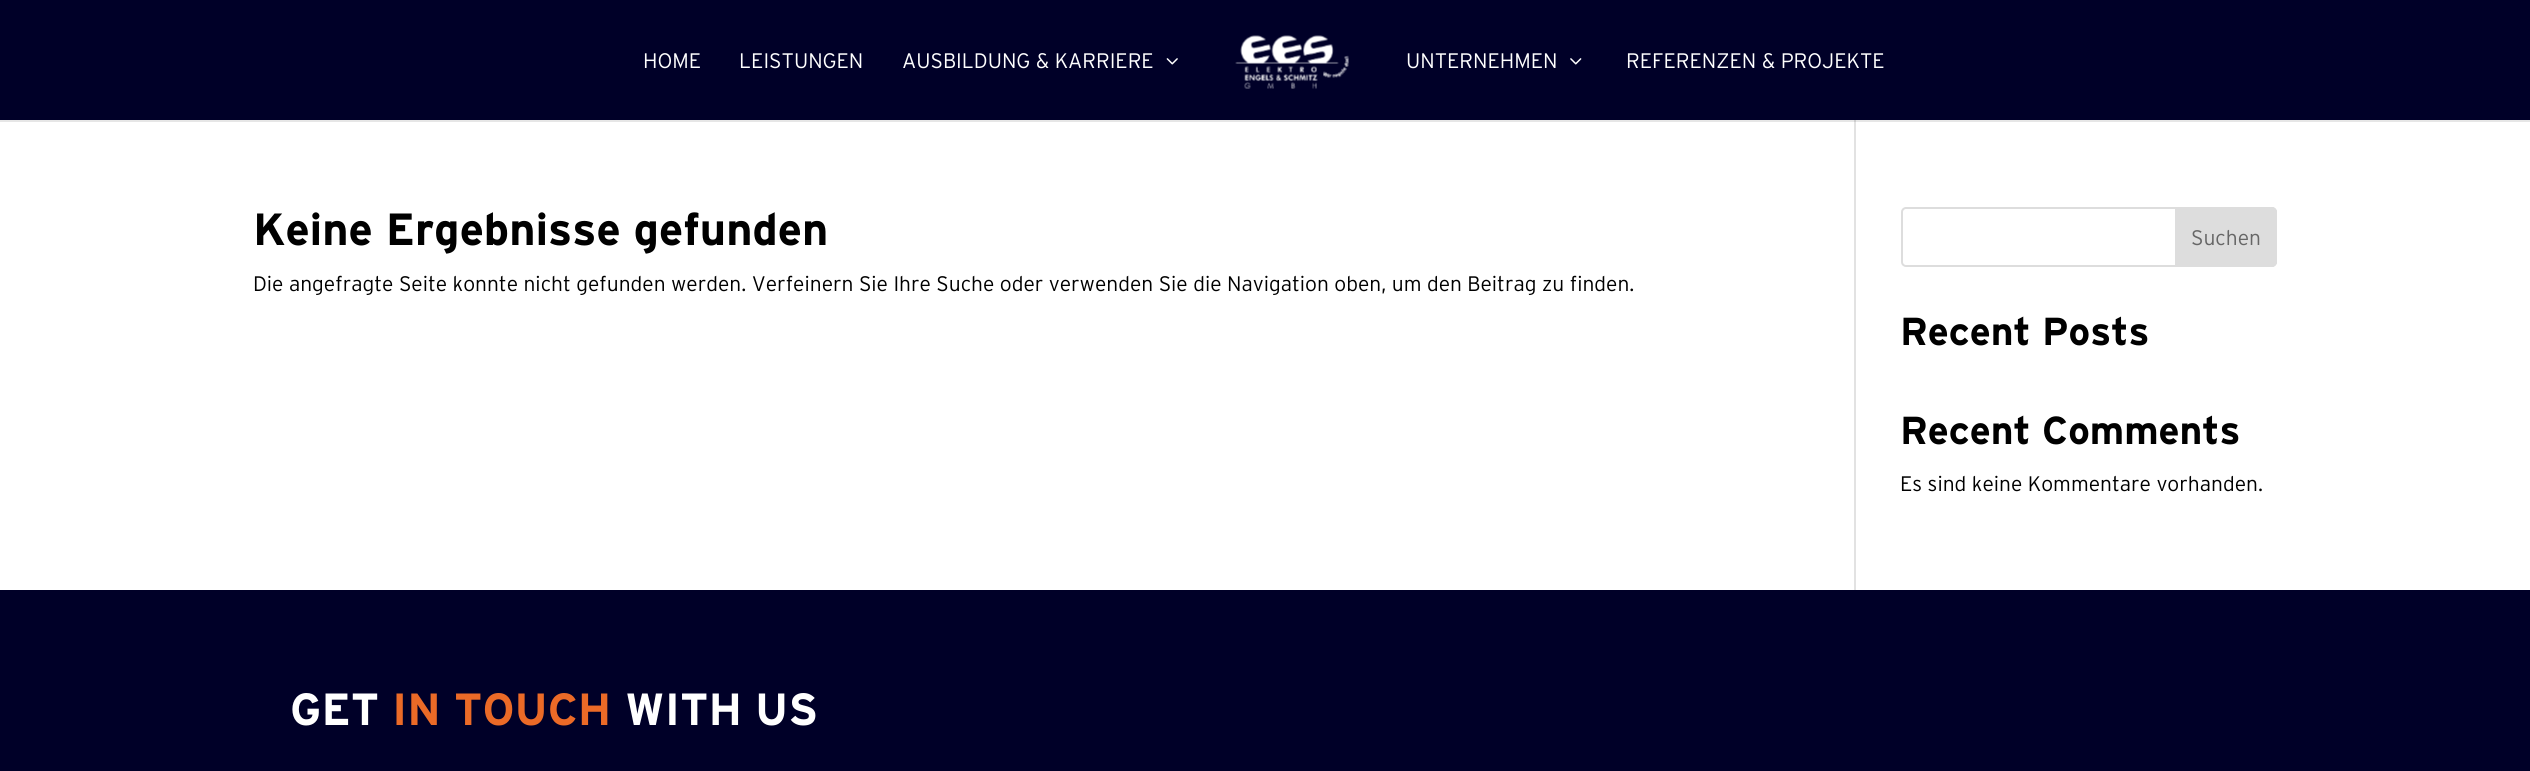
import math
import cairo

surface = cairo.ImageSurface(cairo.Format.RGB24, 2530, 771)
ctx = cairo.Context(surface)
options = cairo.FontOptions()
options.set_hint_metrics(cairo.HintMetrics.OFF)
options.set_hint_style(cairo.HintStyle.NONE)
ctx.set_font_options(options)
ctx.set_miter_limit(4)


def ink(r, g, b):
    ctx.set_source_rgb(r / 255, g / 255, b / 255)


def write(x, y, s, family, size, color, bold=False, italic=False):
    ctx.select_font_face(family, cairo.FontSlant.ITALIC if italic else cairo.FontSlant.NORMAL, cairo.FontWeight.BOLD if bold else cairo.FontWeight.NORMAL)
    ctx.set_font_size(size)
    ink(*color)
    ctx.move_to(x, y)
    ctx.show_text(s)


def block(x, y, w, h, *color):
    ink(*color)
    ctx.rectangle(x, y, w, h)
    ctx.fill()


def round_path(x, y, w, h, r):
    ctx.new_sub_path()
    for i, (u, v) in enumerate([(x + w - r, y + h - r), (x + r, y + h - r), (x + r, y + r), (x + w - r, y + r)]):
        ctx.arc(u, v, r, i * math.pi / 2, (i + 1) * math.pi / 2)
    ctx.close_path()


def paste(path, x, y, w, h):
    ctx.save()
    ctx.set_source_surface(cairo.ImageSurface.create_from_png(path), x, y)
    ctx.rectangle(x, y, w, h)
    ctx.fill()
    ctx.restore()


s1 = dict(family="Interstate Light", size=21, color=(255, 255, 255))
s2 = dict(family="Interstate", size=45, color=(0, 0, 0), bold=True)
s3 = dict(family="Interstate Light", size=21, color=(0, 0, 0))
s4 = dict(family="Interstate Light", size=21, color=(102, 102, 102))
s5 = dict(family="Interstate", size=39, color=(0, 0, 0), bold=True)
s6 = dict(family="Interstate", size=45, color=(255, 255, 255), bold=True)
s7 = dict(family="Interstate", size=45, color=(235, 106, 39), bold=True)

ink(255, 255, 255)
ctx.paint()
block(1854, 120, 2, 470, 226, 226, 226)
ctx.set_source_rgba(0, 0, 0, 0.1)
ctx.new_path()
ctx.move_to(0, 120)
ctx.line_to(0, 122)
ctx.line_to(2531, 122)
ctx.line_to(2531, 2)
ctx.line_to(2530, 2)
ctx.line_to(2530, 120)
ctx.close_path()
ctx.fill()
block(0, 0, 2530, 120, 0, 0, 40)
write(643, 68, "HOME", **s1)
write(739, 68, "LEISTUNGEN", **s1)
write(902, 68, "AUSBILDUNG & KARRIERE", **s1)
paste("pic1.png", 1166, 58, 12, 7)
paste("pic2.png", 1235, 35, 114, 54)
write(1406, 68, "UNTERNEHMEN", **s1)
paste("pic3.png", 1570, 58, 12, 7)
write(1626, 68, "REFERENZEN & PROJEKTE", **s1)
write(253, 245, "Keine Ergebnisse gefunden", **s2)
write(253, 291, "Die angefragte Seite konnte nicht gefunden werden. Verfeinern Sie Ihre Suche oder verwenden Sie die Navigation oben, um den Beitrag zu finden.", **s3)
round_path(1902, 208, 374, 58, 4)
ink(221, 221, 221)
ctx.stroke()
ctx.new_path()
ctx.move_to(2176, 208)
ctx.line_to(2272, 208)
ctx.curve_to(2274, 208, 2276, 210, 2276, 212)
ctx.line_to(2276, 262)
ctx.curve_to(2276, 264, 2274, 266, 2272, 266)
ctx.line_to(2176, 266)
ctx.close_path()
ctx.fill_preserve()
ctx.stroke()
write(2191, 245, "Suchen", **s4)
write(1900, 345, "Recent Posts", **s5)
write(1900, 444, "Recent Comments", **s5)
write(1900, 491, "Es sind keine Kommentare vorhanden.", **s3)
block(0, 590, 2530, 181, 0, 0, 40)
write(290, 725, "GET", **s6)
write(392, 725, "IN TOUCH", **s7)
write(625, 725, "WITH US", **s6)
surface.write_to_png("screenshot.png")
